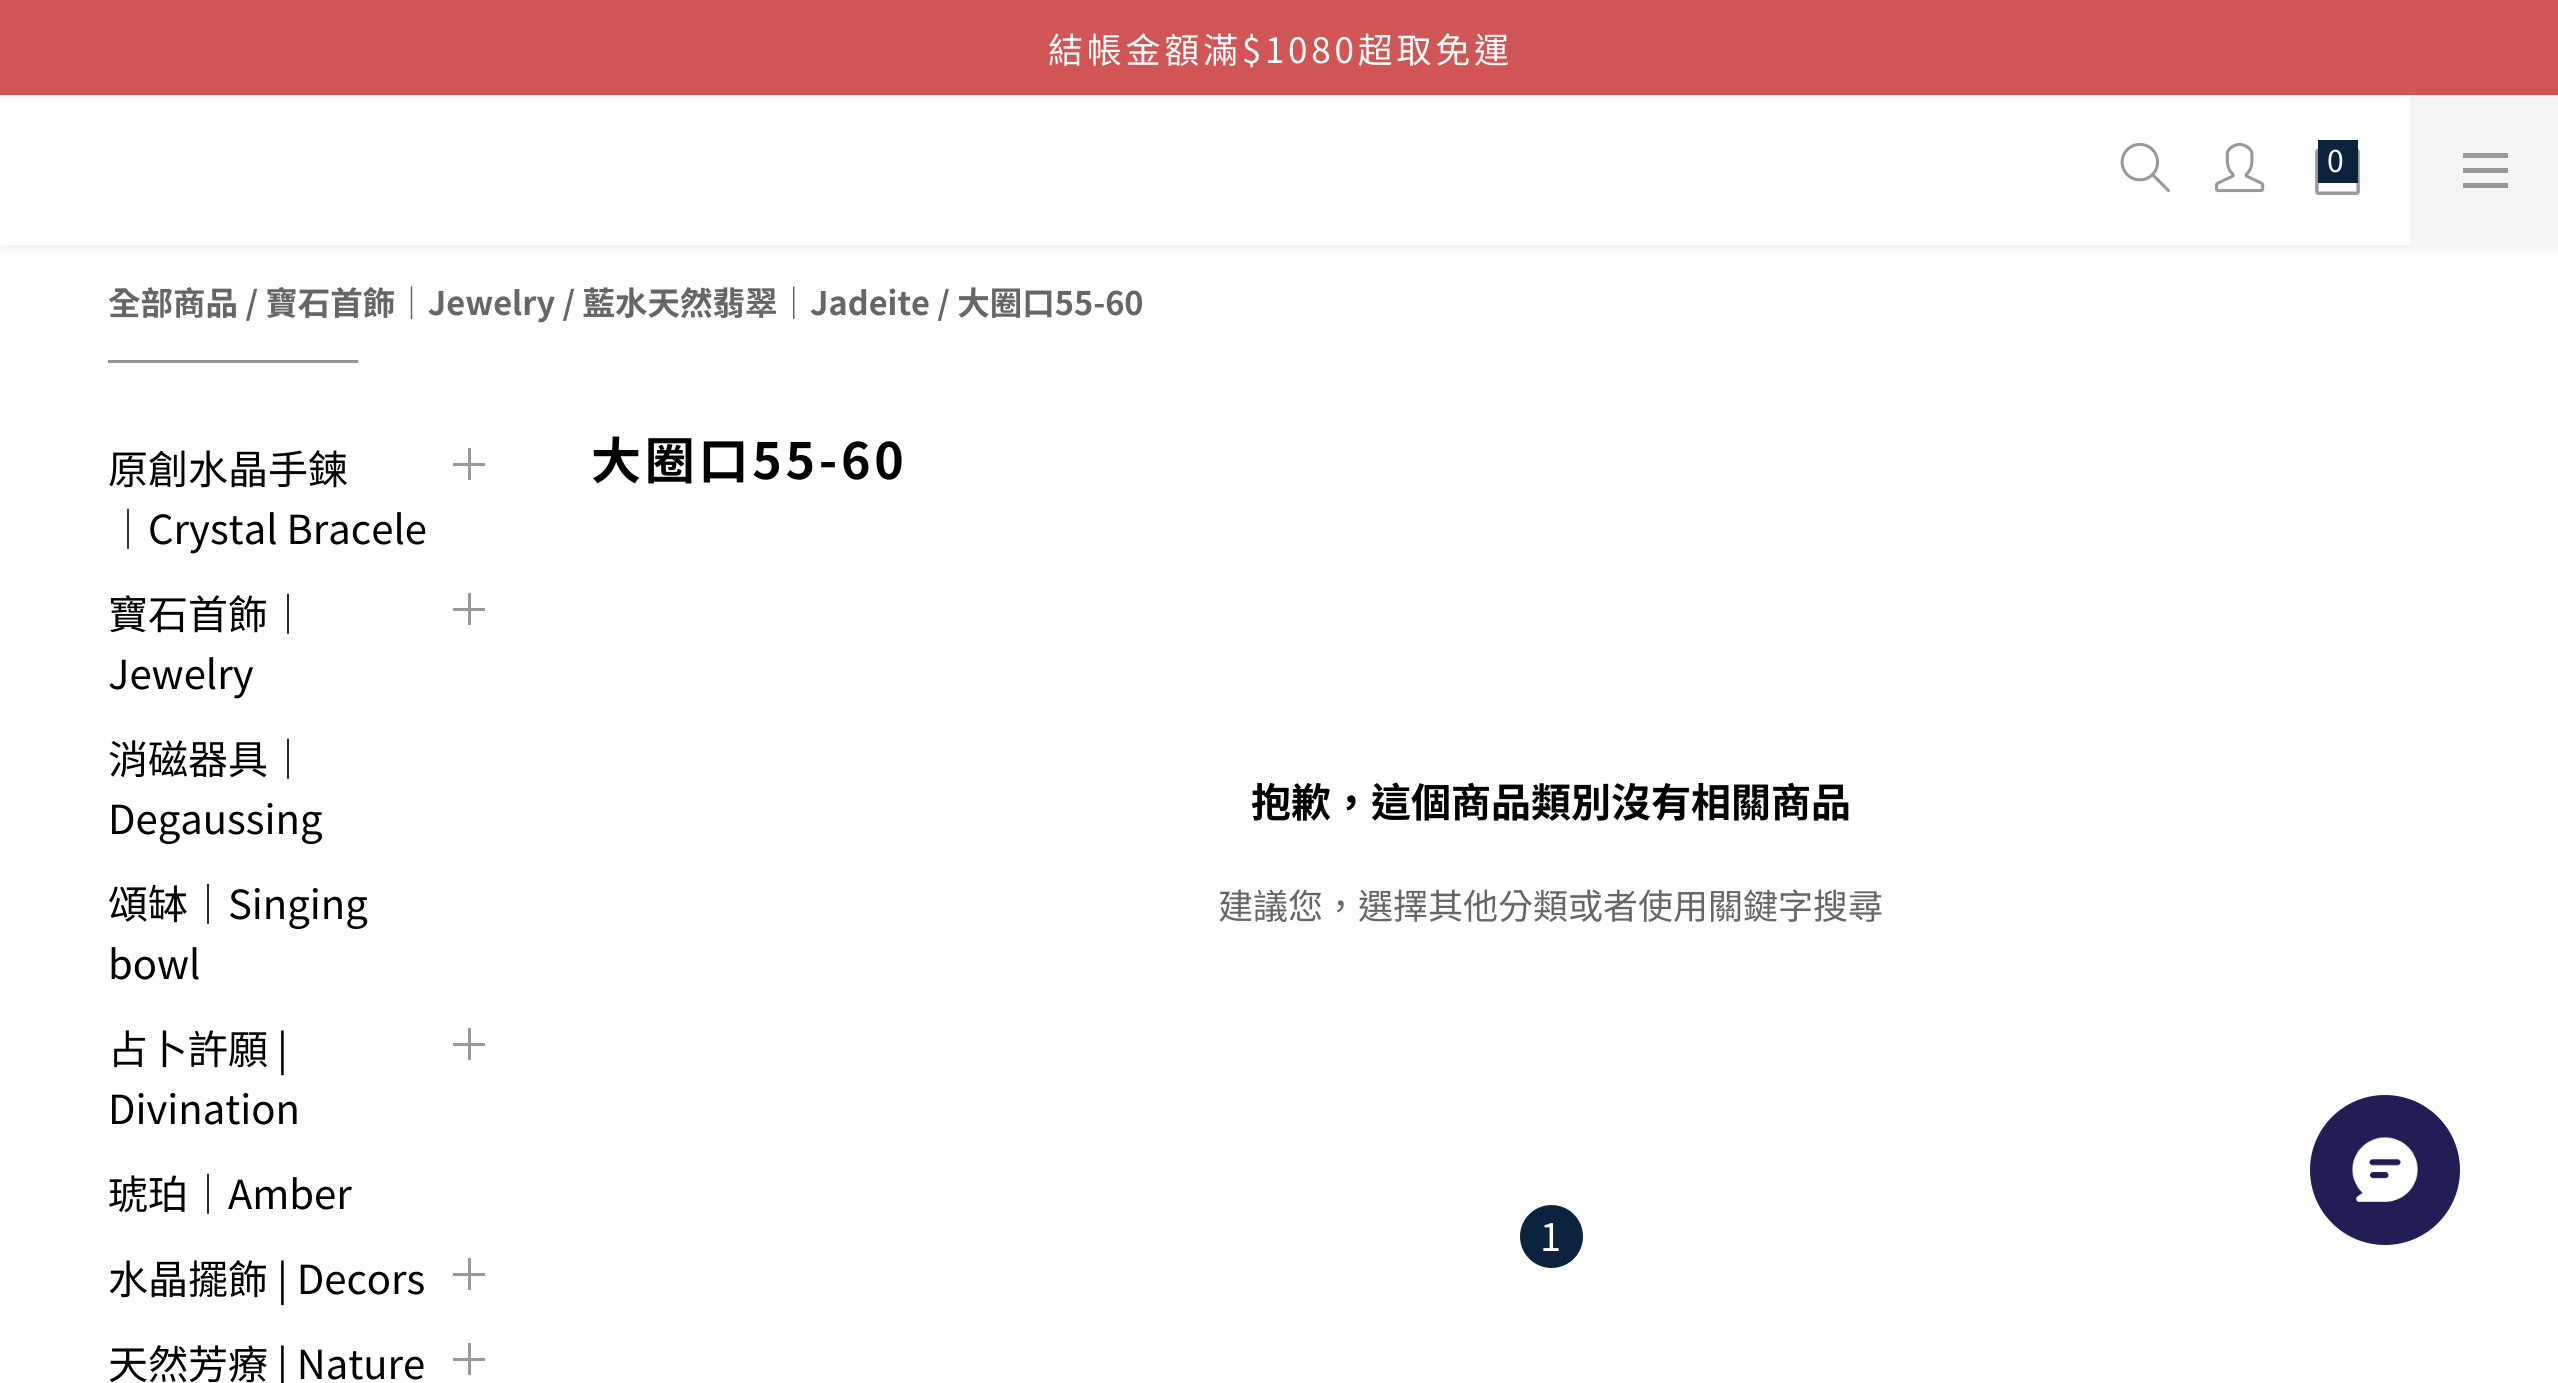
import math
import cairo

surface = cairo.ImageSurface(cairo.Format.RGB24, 2558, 1383)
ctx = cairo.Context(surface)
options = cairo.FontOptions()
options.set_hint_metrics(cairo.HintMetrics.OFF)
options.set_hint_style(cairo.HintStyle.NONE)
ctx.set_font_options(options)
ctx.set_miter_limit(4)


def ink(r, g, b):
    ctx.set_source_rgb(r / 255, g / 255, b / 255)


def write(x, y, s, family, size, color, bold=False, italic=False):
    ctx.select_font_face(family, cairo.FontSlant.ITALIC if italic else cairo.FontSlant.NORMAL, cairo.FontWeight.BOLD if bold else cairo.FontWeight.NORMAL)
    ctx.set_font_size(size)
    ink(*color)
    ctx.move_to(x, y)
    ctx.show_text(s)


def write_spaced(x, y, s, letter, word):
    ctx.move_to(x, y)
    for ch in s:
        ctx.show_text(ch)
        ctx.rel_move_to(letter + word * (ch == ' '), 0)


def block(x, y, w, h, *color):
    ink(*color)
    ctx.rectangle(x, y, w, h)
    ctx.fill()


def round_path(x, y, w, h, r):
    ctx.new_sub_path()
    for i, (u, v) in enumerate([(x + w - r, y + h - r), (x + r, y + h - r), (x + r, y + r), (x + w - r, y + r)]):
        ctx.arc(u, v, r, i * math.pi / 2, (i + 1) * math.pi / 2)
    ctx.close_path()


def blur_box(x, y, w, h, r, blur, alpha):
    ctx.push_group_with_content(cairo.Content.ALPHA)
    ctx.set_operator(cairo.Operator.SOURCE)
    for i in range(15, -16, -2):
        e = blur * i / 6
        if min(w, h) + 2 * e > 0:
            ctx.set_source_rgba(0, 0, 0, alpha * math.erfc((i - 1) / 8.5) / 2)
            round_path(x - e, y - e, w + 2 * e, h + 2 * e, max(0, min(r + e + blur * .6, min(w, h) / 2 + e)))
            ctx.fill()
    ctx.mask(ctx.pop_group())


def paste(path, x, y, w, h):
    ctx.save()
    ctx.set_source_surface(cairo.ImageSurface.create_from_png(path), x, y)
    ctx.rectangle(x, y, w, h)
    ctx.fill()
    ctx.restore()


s1 = dict(family="Noto Sans TC", size=32.5, color=(102, 102, 102), bold=True)
s2 = dict(family="Noto Sans TC", size=40, color=(0, 0, 0))
s3 = dict(family="Noto Sans TC", size=40, color=(0, 0, 0), bold=True)
s4 = dict(family="Noto Sans TC", size=35, color=(102, 102, 102))
s5 = dict(family="Noto Sans TC", size=38, color=(255, 255, 255))

ink(255, 255, 255)
ctx.paint()
block(0, 0, 2558, 95, 210, 85, 85)
ctx.select_font_face("Noto Sans TC")
ctx.set_font_size(35)
ink(255, 255, 255)
write_spaced(1048, 63, "結帳金額滿$1080超取免運", 3.75, 0)
ctx.save()
ctx.rectangle(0, 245, 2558, 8)
ctx.clip()
ink(0, 0, 0)
blur_box(0, 100, 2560, 150, 0, 7.5, 0.06)
ctx.restore()
paste("pic1.png", 2120, 143, 50, 50)
paste("pic2.png", 2215, 143, 50, 50)
paste("pic3.png", 2315, 148, 45, 47)
block(2318, 140, 40, 43, 12, 35, 64)
ctx.set_font_size(30)
ink(255, 255, 255)
write_spaced(2327, 172, "0", 3.75, 0)
block(2410, 95, 148, 150, 245, 245, 245)
block(2463, 168, 45, 5, 153, 153, 153)
block(2463, 153, 45, 5, 153, 153, 153)
block(2463, 183, 45, 5, 153, 153, 153)
write(108, 315, "全部商品 / 寶石首飾｜Jewelry / 藍水天然翡翠｜Jadeite / 大圈口55-60", **s1)
block(108, 360, 250, 3, 151, 151, 151)
write(108, 484, "原創水晶手鍊", **s2)
block(453, 463, 32, 3, 153, 153, 153)
block(468, 448, 3, 32, 153, 153, 153)
write(108, 544, "│Crystal Bracele", **s2)
write(108, 629, "寶石首飾｜", **s2)
block(453, 608, 32, 3, 153, 153, 153)
block(468, 593, 3, 32, 153, 153, 153)
write(108, 689, "Jewelry", **s2)
write(108, 774, "消磁器具｜", **s2)
write(108, 834, "Degaussing", **s2)
write(108, 919, "頌缽｜Singing", **s2)
write(108, 979, "bowl", **s2)
write(108, 1064, "占卜許願 |", **s2)
block(453, 1043, 32, 3, 153, 153, 153)
block(468, 1028, 3, 32, 153, 153, 153)
write(108, 1124, "Divination", **s2)
write(108, 1209, "琥珀｜Amber", **s2)
write(108, 1294, "水晶擺飾 | Decors", **s2)
block(453, 1273, 32, 3, 153, 153, 153)
block(468, 1258, 3, 32, 153, 153, 153)
write(108, 1379, "天然芳療 | Nature", **s2)
block(453, 1358, 32, 3, 153, 153, 153)
block(468, 1343, 3, 32, 153, 153, 153)
ctx.select_font_face("Noto Sans TC", cairo.FontSlant.NORMAL, cairo.FontWeight.BOLD)
ctx.set_font_size(50)
ink(0, 0, 0)
write_spaced(591, 479, "大圈口55-60", 3.75, 0)
write(1251, 817, "抱歉，這個商品類別沒有相關商品", **s3)
write(1218, 919, "建議您，選擇其他分類或者使用關鍵字搜尋", **s4)
ink(12, 35, 64)
ctx.new_path()
ctx.arc(1551.5, 1236.5, 31.5, 0, 2 * math.pi)
ctx.fill()
write(1540, 1251, "1", **s5)
ink(33, 30, 85)
ctx.new_path()
ctx.arc(2385, 1170, 75, 0, 2 * math.pi)
ctx.fill()
paste("pic4.png", 2352, 1137, 66, 65)
surface.write_to_png("screenshot.png")
